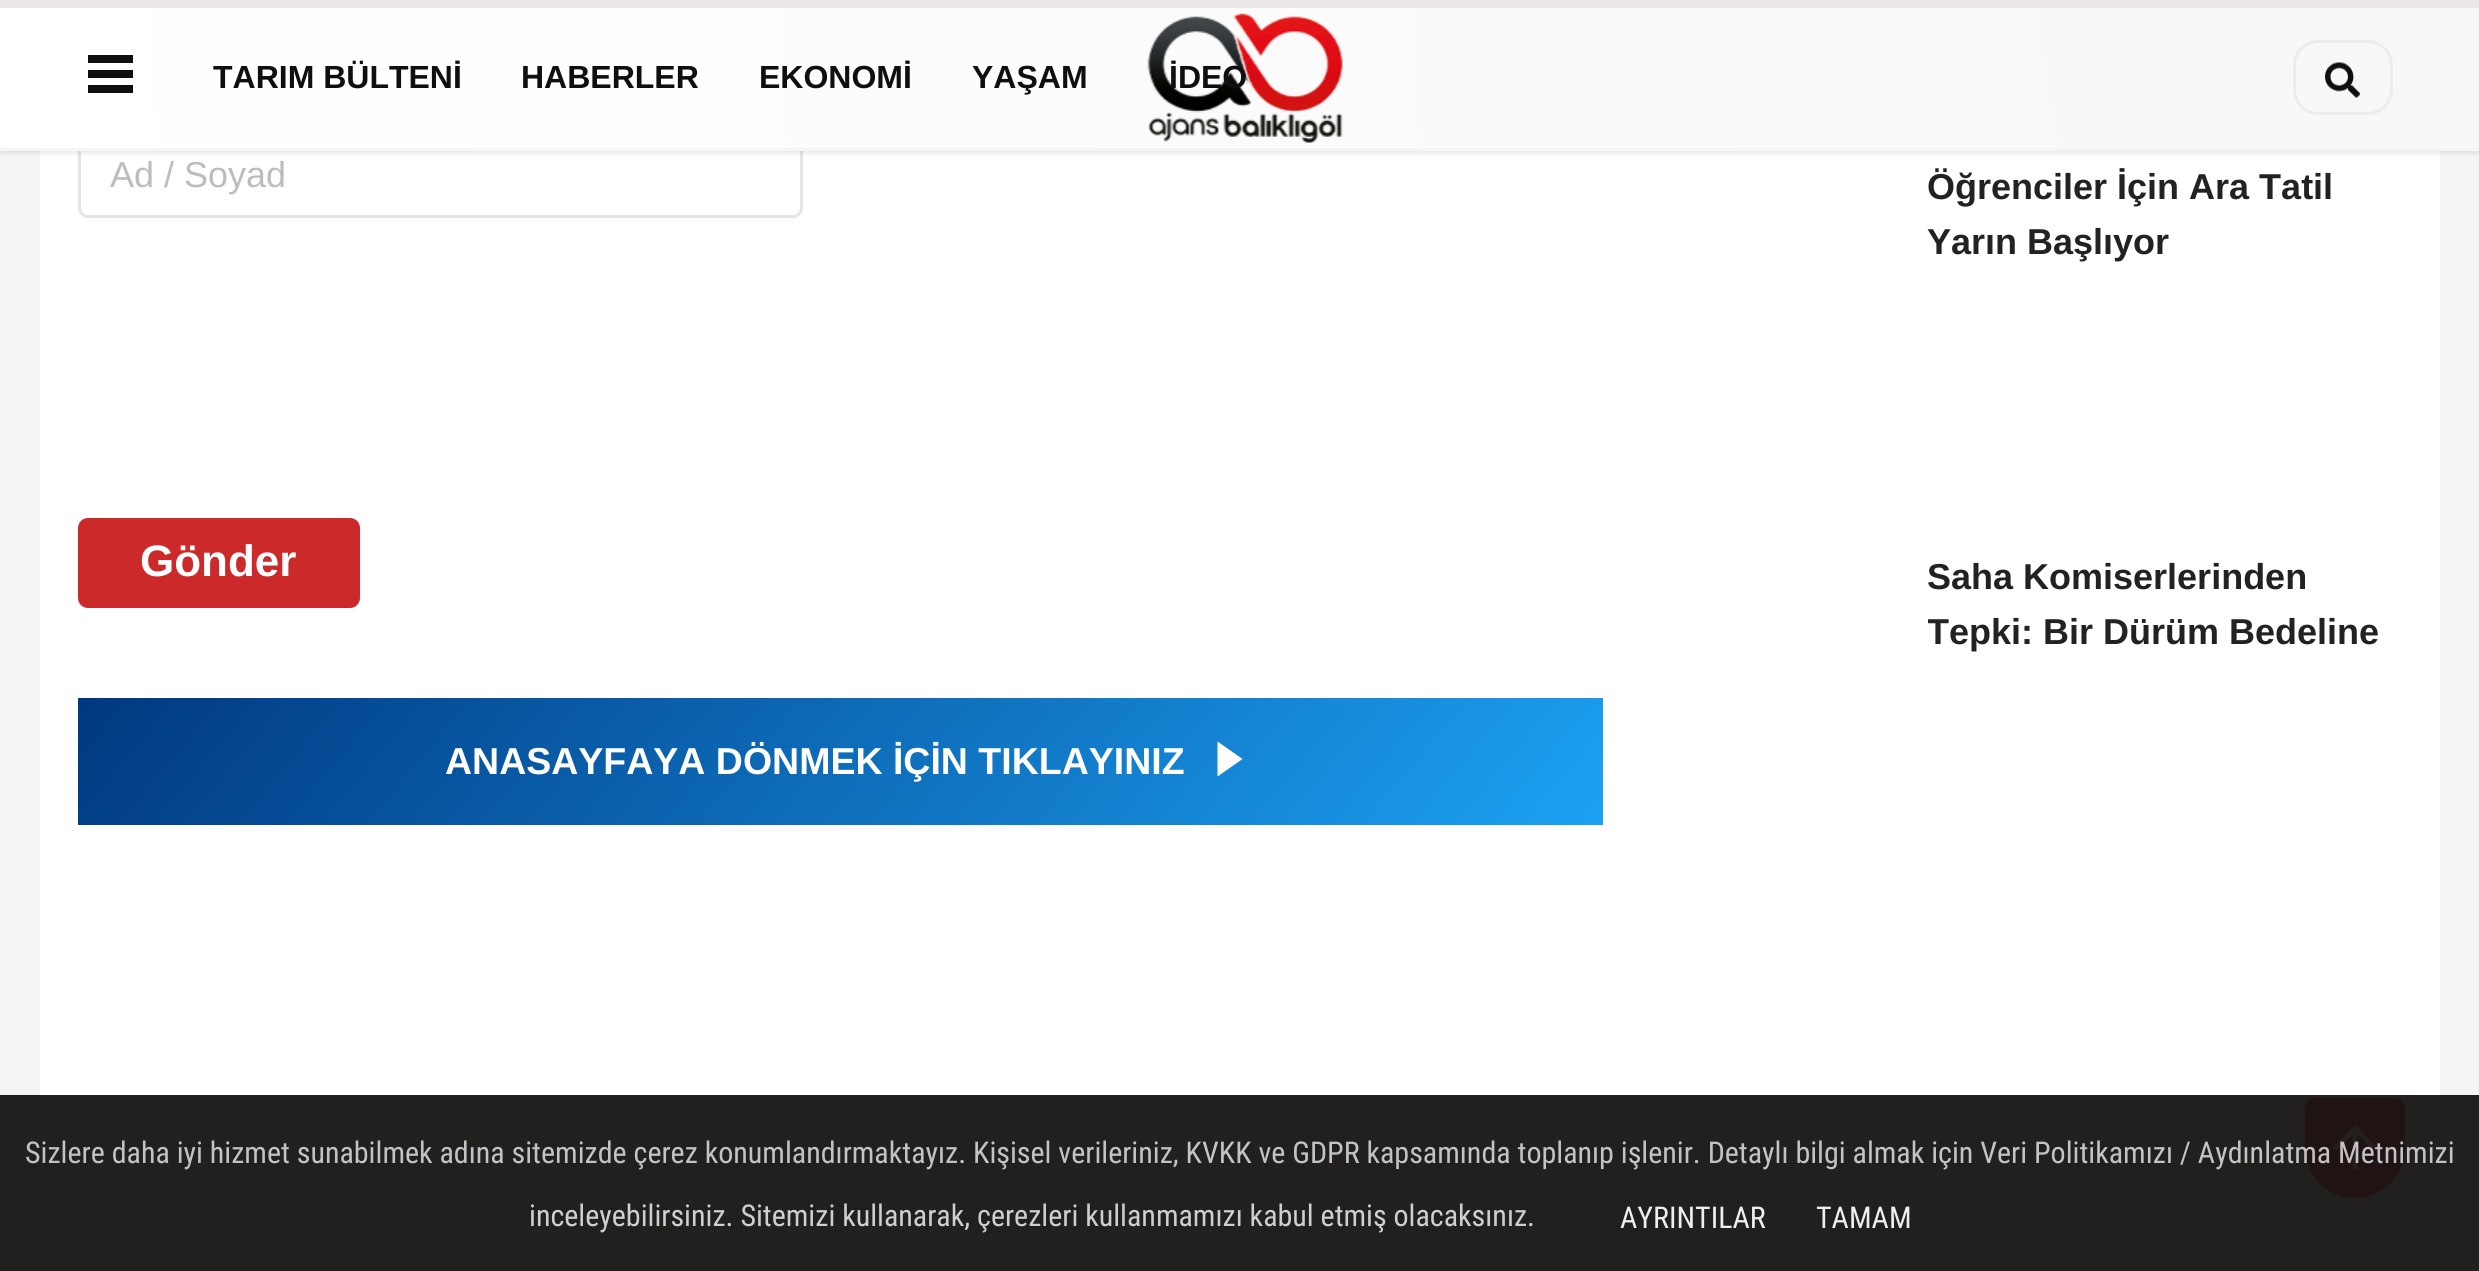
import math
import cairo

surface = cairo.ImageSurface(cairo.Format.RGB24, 2479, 1271)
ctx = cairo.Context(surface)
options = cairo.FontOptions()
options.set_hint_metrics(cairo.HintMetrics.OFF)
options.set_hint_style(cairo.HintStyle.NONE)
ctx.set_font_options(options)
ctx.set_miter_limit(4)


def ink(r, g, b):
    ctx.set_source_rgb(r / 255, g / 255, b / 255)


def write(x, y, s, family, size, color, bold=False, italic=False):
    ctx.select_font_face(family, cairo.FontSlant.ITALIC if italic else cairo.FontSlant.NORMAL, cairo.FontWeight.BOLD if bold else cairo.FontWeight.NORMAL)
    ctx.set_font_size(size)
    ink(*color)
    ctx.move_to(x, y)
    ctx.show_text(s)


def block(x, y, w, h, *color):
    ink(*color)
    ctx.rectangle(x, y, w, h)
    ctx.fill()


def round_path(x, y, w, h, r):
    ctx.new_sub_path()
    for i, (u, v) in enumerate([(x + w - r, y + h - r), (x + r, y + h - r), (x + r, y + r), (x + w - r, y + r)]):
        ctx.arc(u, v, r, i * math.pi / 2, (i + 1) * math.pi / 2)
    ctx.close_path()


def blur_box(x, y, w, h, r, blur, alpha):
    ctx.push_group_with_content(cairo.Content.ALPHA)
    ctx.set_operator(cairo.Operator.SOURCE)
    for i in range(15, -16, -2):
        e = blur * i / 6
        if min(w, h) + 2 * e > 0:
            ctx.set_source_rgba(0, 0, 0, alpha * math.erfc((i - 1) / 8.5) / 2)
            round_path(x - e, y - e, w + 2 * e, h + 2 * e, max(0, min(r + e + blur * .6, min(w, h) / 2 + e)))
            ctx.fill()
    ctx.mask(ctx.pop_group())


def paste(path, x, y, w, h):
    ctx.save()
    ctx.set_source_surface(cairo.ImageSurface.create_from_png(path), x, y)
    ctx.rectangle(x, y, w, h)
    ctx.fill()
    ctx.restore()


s1 = dict(family="Liberation Sans", size=32, color=(15, 15, 15), bold=True)
s2 = dict(family="Liberation Sans", size=36, color=(189, 189, 189))
s3 = dict(family="Liberation Sans", size=44, color=(255, 255, 255), bold=True)
s4 = dict(family="Liberation Sans", size=37.5, color=(255, 255, 255), bold=True)
s5 = dict(family="Liberation Sans", size=36, color=(34, 34, 34), bold=True)
s6 = dict(family="Roboto Condensed", size=30, color=(196, 195, 195))
s7 = dict(family="Roboto Condensed", size=30, color=(207, 207, 207))
s8 = dict(family="Roboto Condensed", size=30, color=(239, 239, 239))

ink(244, 244, 244)
ctx.paint()
block(0, 1095, 2479, 176, 34, 31, 31)
block(40, 151, 2400, 944, 255, 255, 255)
round_path(79.5, 134.5, 722, 82, 8.5)
ink(225, 229, 233)
ctx.set_line_width(3)
ctx.stroke()
ink(0, 0, 0)
blur_box(0, 3, 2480, 150, 0, 2.5, 0.1)
gradient = cairo.RadialGradient(2480, 7.5, 0, 2480, 7.5, 2484)
gradient.add_color_stop_rgba(0, 0.969, 0.969, 0.969, 1)
gradient.add_color_stop_rgba(1, 1, 1, 1, 1)
ctx.set_source(gradient)
ctx.rectangle(0, 8, 2479, 140)
ctx.fill()
block(0, 0, 2479, 8, 235, 231, 230)
block(0, 148, 2479, 3, 245, 245, 245)
block(88, 55, 45, 8, 15, 15, 15)
block(88, 70, 45, 8, 15, 15, 15)
block(88, 85, 45, 8, 15, 15, 15)
paste("pic1.png", 1147, 13, 196, 130)
round_path(2294.5, 41.5, 97, 72, 23.5)
ink(236, 236, 236)
ctx.stroke()
paste("pic2.png", 2325, 62, 35, 36)
write(213, 88, "TARIM BÜLTENİ", **s1)
write(521, 88, "HABERLER", **s1)
write(759, 88, "EKONOMİ", **s1)
write(972, 88, "YAŞAM", **s1)
write(1169, 88, "İDEO", **s1)
write(110, 187, "Ad / Soyad", **s2)
ink(204, 41, 43)
round_path(79.5, 519.5, 279, 87, 8.5)
ctx.fill_preserve()
ctx.stroke()
write(140, 576, "Gönder", **s3)
gradient = cairo.LinearGradient(645, 21, 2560, 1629)
gradient.add_color_stop_rgba(0, 0, 0.22, 0.502, 1)
gradient.add_color_stop_rgba(0.5, 0.11, 0.631, 0.949, 1)
gradient.add_color_stop_rgba(1, 0, 0.22, 0.502, 1)
ctx.set_source(gradient)
ctx.rectangle(78, 698, 1525, 127)
ctx.fill()
write(445, 774, "ANASAYFAYA DÖNMEK İÇİN TIKLAYINIZ", **s4)
ctx.new_path()
ctx.move_to(1217.5, 776.5)
ctx.line_to(1217.5, 741.5)
ctx.line_to(1242.5, 759)
ctx.close_path()
ctx.fill()
write(1927, 199, "Öğrenciler İçin Ara Tatil", **s5)
write(1927, 254, "Yarın Başlıyor", **s5)
write(1927, 589, "Saha Komiserlerinden", **s5)
ctx.save()
ctx.rectangle(1928, 550, 475, 110)
ctx.clip()
write(1927, 644, "Tepki: Bir Dürüm Bedeline", **s5)
ctx.restore()
ink(32, 19, 19)
ctx.new_path()
ctx.move_to(2315, 1098)
ctx.line_to(2395, 1098)
ctx.curve_to(2400.5, 1098, 2405, 1102.5, 2405, 1108)
ctx.line_to(2405, 1148)
ctx.curve_to(2405, 1175.5, 2382.5, 1198, 2355, 1198)
ctx.curve_to(2327.5, 1198, 2305, 1175.5, 2305, 1148)
ctx.line_to(2305, 1108)
ctx.curve_to(2305, 1102.5, 2309.5, 1098, 2315, 1098)
ctx.close_path()
ctx.fill()
paste("pic3.png", 2333, 1125, 44, 45)
write(25, 1163, "Sizlere daha iyi hizmet sunabilmek adına sitemizde çerez konumlandırmaktayız. Kişisel verileriniz, KVKK ve GDPR kapsamında toplanıp işlenir. Detaylı bilgi almak için Veri Politikamızı / Aydınlatma Metnimizi", **s6)
write(529, 1226, "inceleyebilirsiniz. Sitemizi kullanarak, çerezleri kullanmamızı kabul etmiş olacaksınız.", **s7)
write(1620, 1228, "AYRINTILAR", **s8)
write(1816, 1228, "TAMAM", **s8)
surface.write_to_png("screenshot.png")
